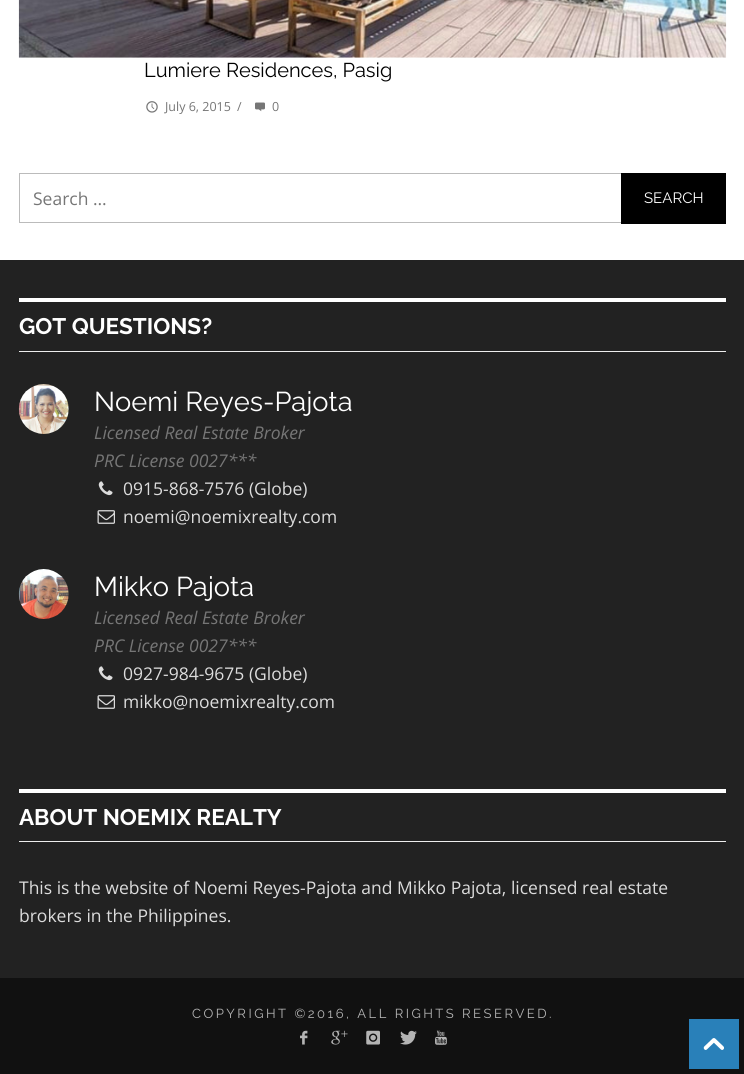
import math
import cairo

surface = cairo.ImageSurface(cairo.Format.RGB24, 744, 1074)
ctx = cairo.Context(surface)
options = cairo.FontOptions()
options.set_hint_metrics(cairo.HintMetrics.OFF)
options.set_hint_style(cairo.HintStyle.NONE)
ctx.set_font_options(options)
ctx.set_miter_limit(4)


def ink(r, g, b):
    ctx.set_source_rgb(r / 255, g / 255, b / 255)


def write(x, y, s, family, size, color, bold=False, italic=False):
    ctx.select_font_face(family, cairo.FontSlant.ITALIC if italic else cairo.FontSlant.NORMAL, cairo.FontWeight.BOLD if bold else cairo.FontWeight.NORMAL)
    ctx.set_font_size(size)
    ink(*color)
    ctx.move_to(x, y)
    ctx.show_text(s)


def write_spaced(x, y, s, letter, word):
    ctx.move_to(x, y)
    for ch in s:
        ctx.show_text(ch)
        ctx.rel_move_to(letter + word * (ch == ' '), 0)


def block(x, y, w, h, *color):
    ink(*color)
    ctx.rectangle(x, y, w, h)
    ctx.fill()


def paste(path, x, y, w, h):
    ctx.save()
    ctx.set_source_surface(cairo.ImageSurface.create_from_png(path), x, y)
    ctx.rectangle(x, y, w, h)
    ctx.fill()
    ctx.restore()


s1 = dict(family="Raleway", size=20, color=(0, 0, 0))
s2 = dict(family="Open Sans", size=12.5, color=(118, 118, 118))
s3 = dict(family="Open Sans", size=17.5, color=(118, 118, 118))
s4 = dict(family="Raleway", size=15, color=(255, 255, 255))
s5 = dict(family="Raleway", size=22.5, color=(255, 255, 255), bold=True)
s6 = dict(family="Raleway", size=27.25, color=(255, 255, 255))
s7 = dict(family="Open Sans", size=17.5, color=(118, 118, 118), italic=True)
s8 = dict(family="Open Sans", size=17.5, color=(220, 220, 220))

ink(255, 255, 255)
ctx.paint()
paste("pic1.png", 18, 0, 709, 58)
write(144, 77, "Lumiere Residences, Pasig", **s1)
paste("pic2.png", 146, 101, 12, 12)
write(165, 111, "July 6, 2015", **s2)
write(237, 111, "/", **s2)
paste("pic3.png", 255, 102, 10, 10)
write(272, 111, "0", **s2)
ctx.rectangle(19.5, 173.5, 706, 49)
ink(187, 187, 187)
ctx.set_line_width(1)
ctx.stroke()
write(33, 205, "Search …", **s3)
block(621, 173, 105, 51, 0, 0, 0)
write(644, 203, "SEARCH", **s4)
block(0, 260, 744, 718, 34, 34, 34)
block(19, 298, 707, 4, 255, 255, 255)
block(19, 351, 707, 1, 238, 238, 238)
write(19, 334, "GOT QUESTIONS?", **s5)
paste("pic4.png", 18, 384, 51, 50)
write(94, 411, "Noemi Reyes-Pajota", **s6)
write(94, 439, "Licensed Real Estate Broker", **s7)
write(94, 467, "PRC License 0027***", **s7)
paste("pic5.png", 98, 481, 15, 15)
write(123, 495, "0915-868-7576 (Globe)", **s8)
paste("pic6.png", 97, 510, 18, 14)
write(123, 523, "noemi@noemixrealty.com", **s8)
paste("pic7.png", 18, 569, 51, 50)
write(94, 596, "Mikko Pajota", **s6)
write(94, 624, "Licensed Real Estate Broker", **s7)
write(94, 652, "PRC License 0027***", **s7)
paste("pic5.png", 98, 666, 15, 15)
write(123, 680, "0927-984-9675 (Globe)", **s8)
paste("pic6.png", 97, 695, 18, 14)
write(123, 708, "mikko@noemixrealty.com", **s8)
block(19, 789, 707, 4, 255, 255, 255)
block(19, 841, 707, 1, 238, 238, 238)
write(19, 825, "ABOUT NOEMIX REALTY", **s5)
write(19, 894, "This is the website of Noemi Reyes-Pajota and Mikko Pajota, licensed real estate", **s8)
write(19, 922, "brokers in the Philippines.", **s8)
block(0, 978, 744, 96, 17, 17, 17)
ctx.select_font_face("Raleway")
ctx.set_font_size(13.05)
ink(180, 180, 180)
write_spaced(192, 1018, "COPYRIGHT ©2016, ALL RIGHTS RESERVED.", 2.5, 0)
paste("pic8.png", 300, 1030, 8, 15)
paste("pic9.png", 331, 1030, 17, 15)
paste("pic10.png", 366, 1030, 14, 15)
paste("pic11.png", 400, 1030, 17, 15)
paste("pic12.png", 435, 1030, 12, 15)
block(689, 1019, 50, 50, 41, 128, 185)
paste("pic13.png", 703, 1038, 21, 12)
surface.write_to_png("screenshot.png")
